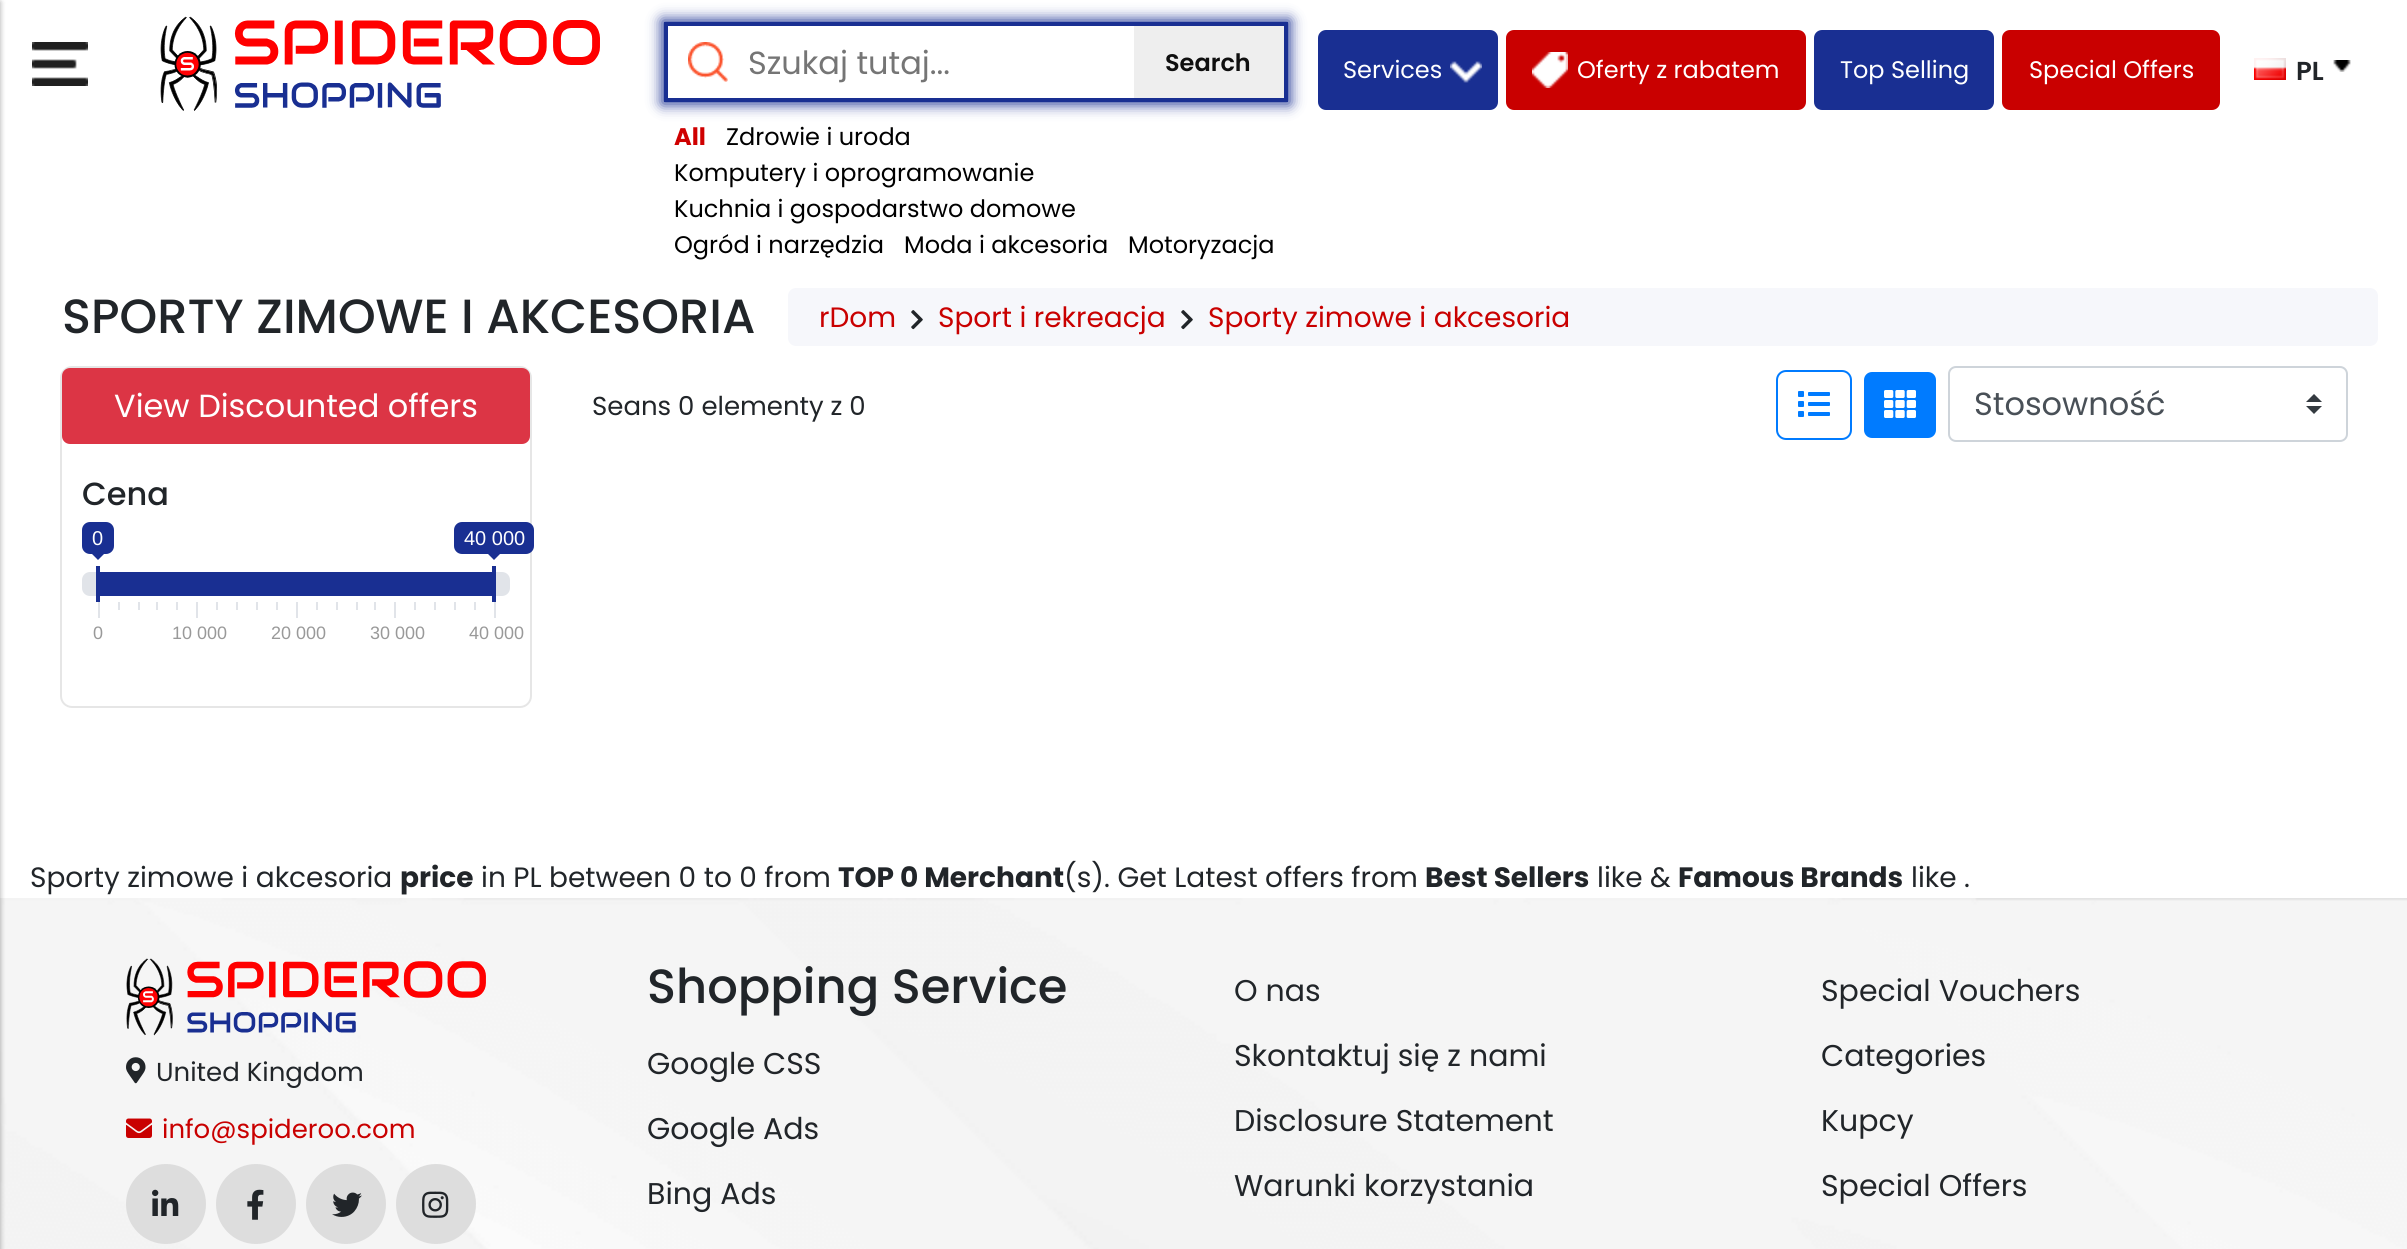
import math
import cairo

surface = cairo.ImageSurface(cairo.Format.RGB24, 2407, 1249)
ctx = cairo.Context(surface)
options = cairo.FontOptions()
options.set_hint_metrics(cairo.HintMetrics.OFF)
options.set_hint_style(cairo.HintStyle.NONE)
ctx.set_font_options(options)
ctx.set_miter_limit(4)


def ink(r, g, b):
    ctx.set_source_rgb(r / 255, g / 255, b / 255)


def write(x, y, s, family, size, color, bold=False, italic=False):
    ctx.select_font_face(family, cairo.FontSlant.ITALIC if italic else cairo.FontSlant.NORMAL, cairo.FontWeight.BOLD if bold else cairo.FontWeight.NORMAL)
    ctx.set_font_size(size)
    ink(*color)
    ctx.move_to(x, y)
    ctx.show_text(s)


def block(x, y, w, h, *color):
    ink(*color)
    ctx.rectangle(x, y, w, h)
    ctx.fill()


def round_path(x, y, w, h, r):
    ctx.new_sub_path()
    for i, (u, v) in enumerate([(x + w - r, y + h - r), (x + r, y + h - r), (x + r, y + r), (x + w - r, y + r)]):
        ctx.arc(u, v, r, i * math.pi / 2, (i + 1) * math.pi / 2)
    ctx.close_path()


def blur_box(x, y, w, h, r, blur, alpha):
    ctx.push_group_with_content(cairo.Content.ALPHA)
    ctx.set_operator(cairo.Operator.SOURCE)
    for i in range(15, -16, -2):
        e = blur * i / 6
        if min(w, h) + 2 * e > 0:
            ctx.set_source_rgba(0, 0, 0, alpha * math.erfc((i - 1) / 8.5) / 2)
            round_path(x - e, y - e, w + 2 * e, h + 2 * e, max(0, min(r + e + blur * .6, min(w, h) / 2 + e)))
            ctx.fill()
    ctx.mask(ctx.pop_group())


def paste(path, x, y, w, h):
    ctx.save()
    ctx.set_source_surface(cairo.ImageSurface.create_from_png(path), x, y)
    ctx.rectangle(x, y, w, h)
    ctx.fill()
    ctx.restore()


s1 = dict(family="Poppins", size=32, color=(117, 117, 117))
s2 = dict(family="Poppins SemiBold", size=24, color=(15, 15, 15))
s3 = dict(family="Poppins", size=24, color=(207, 0, 0), bold=True)
s4 = dict(family="Poppins", size=24, color=(0, 0, 0))
s5 = dict(family="Poppins", size=24, color=(255, 255, 255))
s6 = dict(family="Poppins SemiBold", size=26, color=(33, 37, 41))
s7 = dict(family="Poppins Medium", size=48, color=(33, 37, 41))
s8 = dict(family="Poppins", size=28, color=(201, 0, 0))
s9 = dict(family="Poppins", size=32, color=(255, 255, 255))
s10 = dict(family="Poppins Medium", size=32, color=(33, 37, 41))
s11 = dict(family="Liberation Sans", size=20, color=(255, 255, 255))
s12 = dict(family="Liberation Sans", size=18, color=(153, 153, 153))
s13 = dict(family="Poppins", size=26, color=(33, 37, 41))
s14 = dict(family="Poppins", size=32, color=(73, 80, 87))
s15 = dict(family="Poppins", size=28, color=(33, 37, 41))
s16 = dict(family="Poppins", size=28, color=(33, 37, 41), bold=True)
s17 = dict(family="Poppins", size=26, color=(201, 0, 0))
s18 = dict(family="Poppins", size=30, color=(33, 37, 41))

ink(255, 255, 255)
ctx.paint()
paste("pic11.png", 0, 898, 2407, 351)
ink(0, 0, 0)
blur_box(-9, 2, 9, 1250, 0, 3, 0.24)
blur_box(-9, 2, 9, 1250, 0, 3, 0.12)
paste("pic1.png", 32, 42, 56, 44)
paste("pic2.png", 160, 16, 440, 95)
ink(25, 47, 146)
blur_box(662, 20, 628, 84, 0, 7, 1)
block(668, 26, 466, 72, 255, 255, 255)
ctx.rectangle(666, 24, 620, 76)
ink(25, 47, 146)
ctx.set_line_width(4)
ctx.stroke()
paste("pic3.png", 688, 42, 40, 40)
write(748, 74, "Szukaj tutaj...", **s1)
block(1134, 26, 150, 72, 238, 238, 238)
write(1165, 71, "Search", **s2)
write(674, 145, "All", **s3)
write(726, 145, "Zdrowie i uroda", **s4)
write(674, 181, "Komputery i oprogramowanie", **s4)
write(674, 217, "Kuchnia i gospodarstwo domowe", **s4)
write(674, 253, "Ogród i narzędzia", **s4)
write(904, 253, "Moda i akcesoria", **s4)
write(1128, 253, "Motoryzacja", **s4)
ink(25, 47, 146)
round_path(1318, 30, 180, 80, 8)
ctx.fill()
write(1343, 78, "Services", **s5)
paste("pic4.png", 1450, 61, 32, 22)
ink(201, 0, 0)
round_path(1506, 30, 300, 80, 8)
ctx.fill()
paste("pic5.png", 1532, 52, 36, 36)
write(1577, 78, "Oferty z rabatem", **s5)
ink(25, 47, 146)
round_path(1814, 30, 180, 80, 8)
ctx.fill()
write(1840, 78, "Top Selling", **s5)
ink(201, 0, 0)
round_path(2002, 30, 218, 80, 8)
ctx.fill()
write(2029, 78, "Special Offers", **s5)
paste("pic6.png", 2254, 58, 32, 22)
write(2296, 80, "PL", **s6)
paste("pic7.png", 2333, 60, 18, 12)
write(62, 333, "SPORTY ZIMOWE I AKCESORIA", **s7)
ink(246, 247, 251)
round_path(788, 288, 1590, 58, 8)
ctx.fill()
write(819, 327, "rDom", **s8)
paste("pic8.png", 911, 310, 12, 20)
write(938, 327, "Sport i rekreacja", **s8)
paste("pic8.png", 1181, 310, 12, 20)
write(1208, 327, "Sporty zimowe i akcesoria", **s8)
round_path(61, 367, 470, 340, 11)
ink(230, 230, 230)
ctx.set_line_width(2)
ctx.stroke()
ink(220, 53, 69)
round_path(63, 369, 466, 74, 7)
ctx.fill_preserve()
ctx.stroke()
write(114, 417, "View Discounted offers", **s9)
write(82, 505, "Cena", **s10)
ink(25, 47, 146)
round_path(82, 522, 32, 32, 8)
ctx.fill()
write(92, 545, "0", **s11)
ink(25, 47, 146)
ctx.new_path()
ctx.move_to(92, 554)
ctx.line_to(104, 554)
ctx.line_to(98, 560)
ctx.close_path()
ctx.fill()
round_path(454, 522, 80, 32, 8)
ctx.fill()
write(464, 545, "40 000", **s11)
ink(25, 47, 146)
ctx.new_path()
ctx.move_to(488, 554)
ctx.line_to(500, 554)
ctx.line_to(494, 560)
ctx.close_path()
ctx.fill()
ink(225, 228, 233)
round_path(82, 572, 428, 24, 8)
ctx.fill()
block(96, 566, 4, 36, 25, 47, 146)
block(100, 572, 392, 24, 25, 47, 146)
block(492, 566, 4, 36, 25, 47, 146)
block(98, 602, 2, 16, 225, 228, 233)
block(118, 602, 2, 8, 225, 228, 233)
block(138, 602, 2, 8, 225, 228, 233)
block(156, 602, 2, 8, 225, 228, 233)
block(176, 602, 2, 8, 225, 228, 233)
block(196, 602, 2, 16, 225, 228, 233)
block(216, 602, 2, 8, 225, 228, 233)
block(236, 602, 2, 8, 225, 228, 233)
block(256, 602, 2, 8, 225, 228, 233)
block(276, 602, 2, 8, 225, 228, 233)
block(296, 602, 2, 16, 225, 228, 233)
block(316, 602, 2, 8, 225, 228, 233)
block(336, 602, 2, 8, 225, 228, 233)
block(356, 602, 2, 8, 225, 228, 233)
block(374, 602, 2, 8, 225, 228, 233)
block(394, 602, 2, 16, 225, 228, 233)
block(414, 602, 2, 8, 225, 228, 233)
block(434, 602, 2, 8, 225, 228, 233)
block(454, 602, 2, 8, 225, 228, 233)
block(474, 602, 2, 8, 225, 228, 233)
block(494, 602, 2, 16, 225, 228, 233)
write(93, 639, "0", **s12)
write(172, 639, "10 000", **s12)
write(271, 639, "20 000", **s12)
write(370, 639, "30 000", **s12)
write(469, 639, "40 000", **s12)
write(592, 415, "Seans 0 elementy z 0", **s13)
round_path(1777, 371, 74, 68, 9)
ink(0, 123, 255)
ctx.stroke()
paste("pic9.png", 1798, 391, 32, 26)
round_path(1863, 371, 74, 68, 9)
ctx.fill_preserve()
ink(255, 255, 255)
ctx.stroke()
paste("pic10.png", 1884, 390, 32, 28)
ink(52, 58, 64)
ctx.new_path()
ctx.move_to(2314, 394)
ctx.line_to(2306, 402)
ctx.line_to(2322, 402)
ctx.close_path()
ctx.move_to(2314, 414)
ctx.line_to(2306, 406)
ctx.line_to(2322, 406)
ctx.close_path()
ctx.fill()
round_path(1949, 367, 398, 74, 7)
ink(206, 212, 218)
ctx.stroke()
write(1974, 415, "Stosowność", **s14)
write(30, 887, "Sporty zimowe i akcesoria", **s15)
write(400, 887, "price", **s16)
write(481, 887, "in PL between 0 to 0 from", **s15)
write(838, 887, "TOP 0 Merchant", **s16)
write(1064, 887, "(s). Get Latest offers from", **s15)
write(1425, 887, "Best Sellers", **s16)
write(1597, 887, "like &", **s15)
write(1678, 887, "Famous Brands", **s16)
write(1911, 887, "like .", **s15)
paste("pic12.png", 126, 958, 360, 78)
paste("pic13.png", 126, 1057, 20, 27)
write(156, 1081, "United Kingdom", **s13)
paste("pic14.png", 126, 1118, 26, 20)
write(162, 1138, "info@spideroo.com", **s17)
ink(221, 221, 221)
ctx.new_path()
ctx.arc(166, 1204, 40, 0, 2 * math.pi)
ctx.fill()
paste("pic15.png", 152, 1189, 27, 27)
ctx.arc(256, 1204, 40, 0, 2 * math.pi)
ctx.fill()
paste("pic16.png", 247, 1189, 17, 31)
ctx.arc(346, 1204, 40, 0, 2 * math.pi)
ctx.fill()
paste("pic17.png", 332, 1192, 30, 25)
ctx.arc(436, 1204, 40, 0, 2 * math.pi)
ctx.fill()
paste("pic18.png", 422, 1191, 27, 27)
write(647, 1003, "Shopping Service", **s7)
write(647, 1074, "Google CSS", **s18)
write(647, 1139, "Google Ads", **s18)
write(647, 1204, "Bing Ads", **s18)
write(1234, 1001, "O nas", **s18)
write(1234, 1066, "Skontaktuj się z nami", **s18)
write(1234, 1131, "Disclosure Statement", **s18)
write(1234, 1196, "Warunki korzystania", **s18)
write(1821, 1001, "Special Vouchers", **s18)
write(1821, 1066, "Categories", **s18)
write(1821, 1131, "Kupcy", **s18)
write(1821, 1196, "Special Offers", **s18)
surface.write_to_png("screenshot.png")
